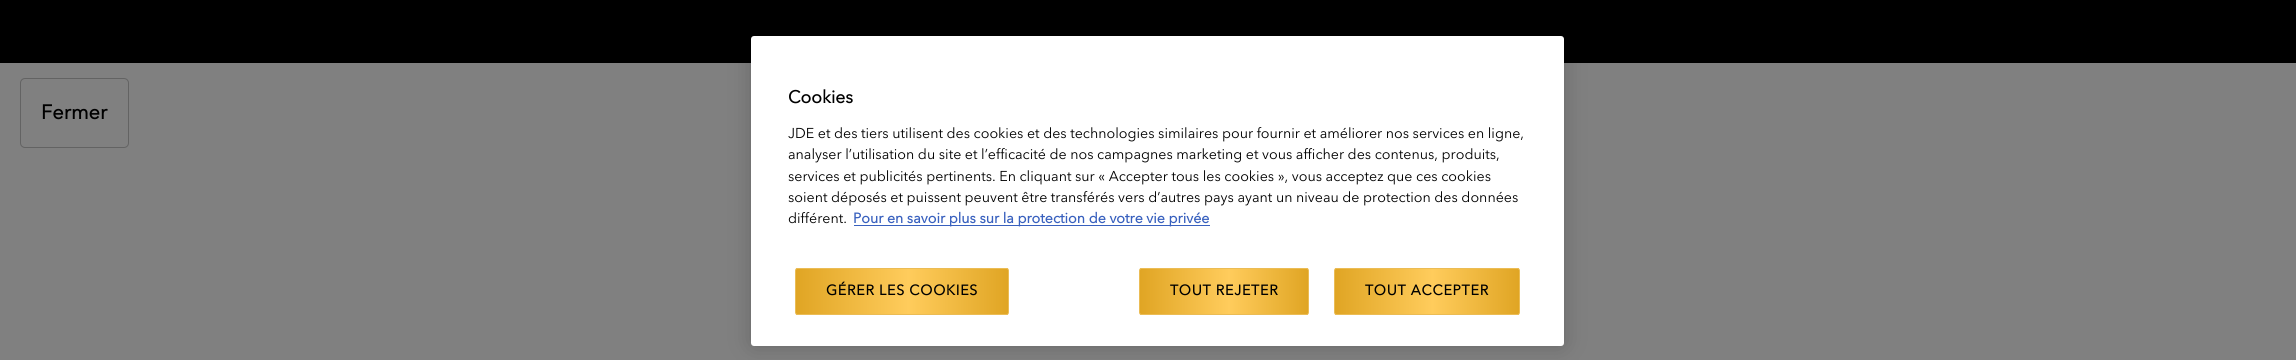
import math
import cairo

surface = cairo.ImageSurface(cairo.Format.RGB24, 2296, 360)
ctx = cairo.Context(surface)
options = cairo.FontOptions()
options.set_hint_metrics(cairo.HintMetrics.OFF)
options.set_hint_style(cairo.HintStyle.NONE)
ctx.set_font_options(options)
ctx.set_miter_limit(4)


def ink(r, g, b):
    ctx.set_source_rgb(r / 255, g / 255, b / 255)


def write(x, y, s, family, size, color, bold=False, italic=False):
    ctx.select_font_face(family, cairo.FontSlant.ITALIC if italic else cairo.FontSlant.NORMAL, cairo.FontWeight.BOLD if bold else cairo.FontWeight.NORMAL)
    ctx.set_font_size(size)
    ink(*color)
    ctx.move_to(x, y)
    ctx.show_text(s)


def write_spaced(x, y, s, letter, word):
    ctx.move_to(x, y)
    for ch in s:
        ctx.show_text(ch)
        ctx.rel_move_to(letter + word * (ch == ' '), 0)


def block(x, y, w, h, *color):
    ink(*color)
    ctx.rectangle(x, y, w, h)
    ctx.fill()


def round_path(x, y, w, h, r):
    ctx.new_sub_path()
    for i, (u, v) in enumerate([(x + w - r, y + h - r), (x + r, y + h - r), (x + r, y + r), (x + w - r, y + r)]):
        ctx.arc(u, v, r, i * math.pi / 2, (i + 1) * math.pi / 2)
    ctx.close_path()


def blur_box(x, y, w, h, r, blur, alpha):
    ctx.push_group_with_content(cairo.Content.ALPHA)
    ctx.set_operator(cairo.Operator.SOURCE)
    for i in range(15, -16, -2):
        e = blur * i / 6
        if min(w, h) + 2 * e > 0:
            ctx.set_source_rgba(0, 0, 0, alpha * math.erfc((i - 1) / 8.5) / 2)
            round_path(x - e, y - e, w + 2 * e, h + 2 * e, max(0, min(r + e + blur * .6, min(w, h) / 2 + e)))
            ctx.fill()
    ctx.mask(ctx.pop_group())


s1 = dict(family="Avenir Next", size=20, color=(0, 0, 0), bold=True)
s2 = dict(family="Avenir Next", size=17.5, color=(0, 0, 0), bold=True)
s3 = dict(family="Avenir Next", size=14.23, color=(0, 0, 0))
s4 = dict(family="Avenir Next", size=14.23, color=(56, 96, 190), bold=True)

ink(0, 0, 0)
ctx.paint()
block(0, 63, 2296, 297, 128, 128, 128)
round_path(20.5, 78.5, 108, 69, 4.5)
ink(99, 99, 99)
ctx.set_line_width(1)
ctx.stroke()
write(41, 119, "Fermer", **s1)
ink(0, 0, 0)
blur_box(751, 36, 813, 310, 3, 11, 0.2)
ink(255, 255, 255)
round_path(751, 36, 813, 310, 3)
ctx.fill()
write(788, 103, "Cookies", **s2)
write(788, 138, "JDE et des tiers utilisent des cookies et des technologies similaires pour fournir et améliorer nos services en ligne,", **s3)
write(788, 159, "analyser l’utilisation du site et l’efficacité de nos campagnes marketing et vous afficher des contenus, produits,", **s3)
write(788, 181, "services et publicités pertinents. En cliquant sur « Accepter tous les cookies », vous acceptez que ces cookies", **s3)
write(788, 202, "soient déposés et puissent peuvent être transférés vers d’autres pays ayant un niveau de protection des données", **s3)
write(788, 223, "différent.", **s3)
block(854, 225, 356, 1, 56, 96, 190)
write(853, 223, "Pour en savoir plus sur la protection de votre vie privée", **s4)
ctx.save()
round_path(795, 268, 214, 47, 2.5)
ctx.clip()
gradient = cairo.LinearGradient(796, 291, 1008, 291)
gradient.add_color_stop_rgba(0, 0.878, 0.647, 0.141, 1)
gradient.add_color_stop_rgba(0.53, 1, 0.8, 0.361, 1)
gradient.add_color_stop_rgba(1, 0.878, 0.647, 0.141, 1)
ctx.set_source(gradient)
ctx.rectangle(796, 268, 212, 47)
ctx.fill()
ctx.restore()
round_path(795.5, 268.5, 213, 46, 2)
ink(235, 188, 85)
ctx.stroke()
ink(0, 0, 0)
write_spaced(826, 295, "GÉRER LES COOKIES", 0.75, 0)
ctx.save()
round_path(1139, 268, 170, 47, 2.5)
ctx.clip()
gradient = cairo.LinearGradient(1140, 291, 1308, 291)
gradient.add_color_stop_rgba(0, 0.878, 0.647, 0.141, 1)
gradient.add_color_stop_rgba(0.53, 1, 0.8, 0.361, 1)
gradient.add_color_stop_rgba(1, 0.878, 0.647, 0.141, 1)
ctx.set_source(gradient)
ctx.rectangle(1140, 268, 168, 47)
ctx.fill()
ctx.restore()
round_path(1139.5, 268.5, 169, 46, 2)
ink(235, 188, 85)
ctx.stroke()
ink(0, 0, 0)
write_spaced(1170, 295, "TOUT REJETER", 0.75, 0)
ctx.save()
round_path(1334, 268, 186, 47, 2.5)
ctx.clip()
gradient = cairo.LinearGradient(1335, 291, 1519, 291)
gradient.add_color_stop_rgba(0, 0.878, 0.647, 0.141, 1)
gradient.add_color_stop_rgba(0.53, 1, 0.8, 0.361, 1)
gradient.add_color_stop_rgba(1, 0.878, 0.647, 0.141, 1)
ctx.set_source(gradient)
ctx.rectangle(1335, 268, 184, 47)
ctx.fill()
ctx.restore()
round_path(1334.5, 268.5, 185, 46, 2)
ink(235, 188, 85)
ctx.stroke()
ink(0, 0, 0)
write_spaced(1365, 295, "TOUT ACCEPTER", 0.75, 0)
surface.write_to_png("screenshot.png")
